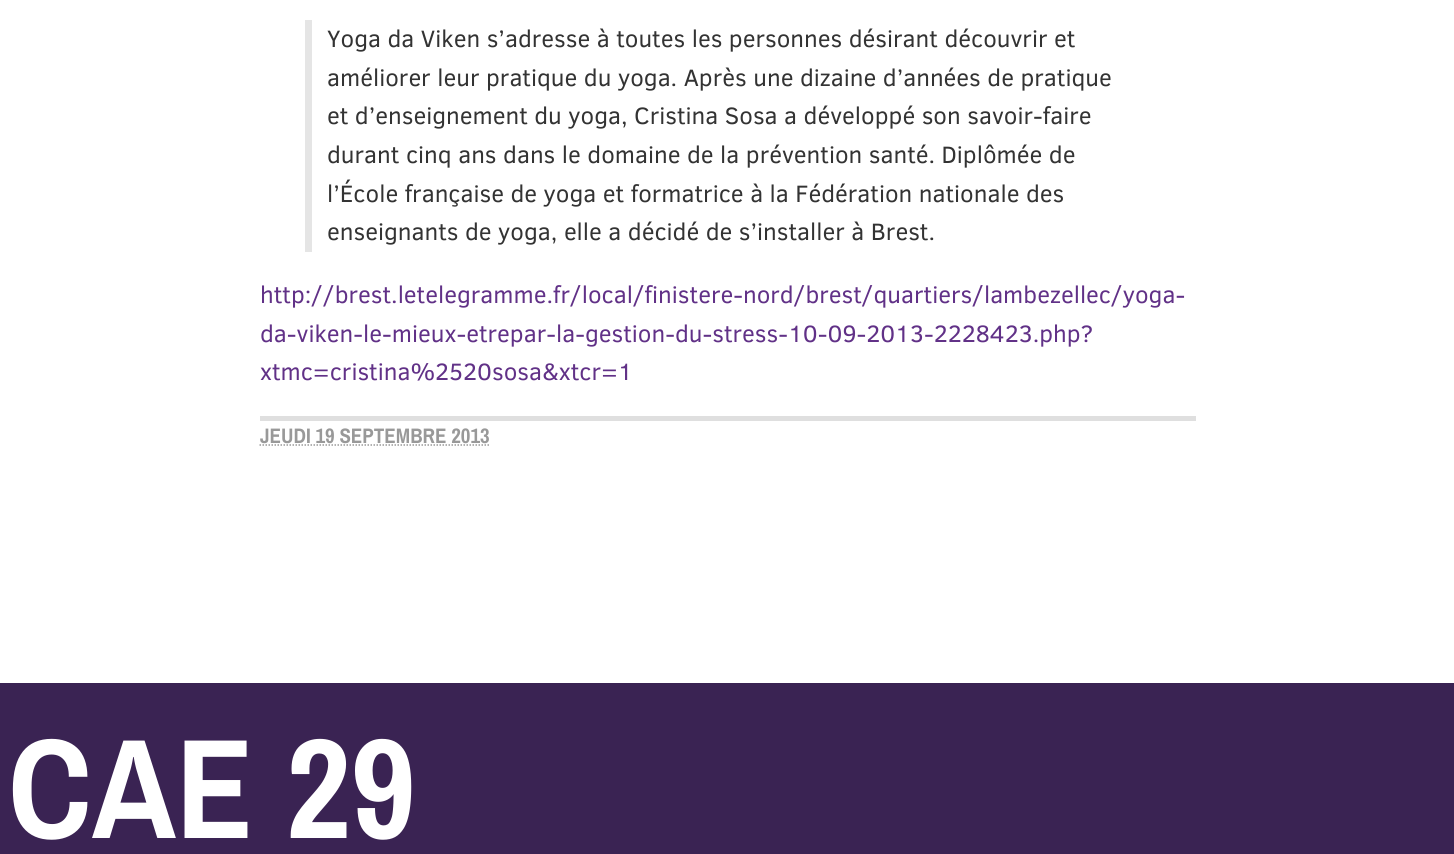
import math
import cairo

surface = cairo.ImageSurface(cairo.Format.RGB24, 1454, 854)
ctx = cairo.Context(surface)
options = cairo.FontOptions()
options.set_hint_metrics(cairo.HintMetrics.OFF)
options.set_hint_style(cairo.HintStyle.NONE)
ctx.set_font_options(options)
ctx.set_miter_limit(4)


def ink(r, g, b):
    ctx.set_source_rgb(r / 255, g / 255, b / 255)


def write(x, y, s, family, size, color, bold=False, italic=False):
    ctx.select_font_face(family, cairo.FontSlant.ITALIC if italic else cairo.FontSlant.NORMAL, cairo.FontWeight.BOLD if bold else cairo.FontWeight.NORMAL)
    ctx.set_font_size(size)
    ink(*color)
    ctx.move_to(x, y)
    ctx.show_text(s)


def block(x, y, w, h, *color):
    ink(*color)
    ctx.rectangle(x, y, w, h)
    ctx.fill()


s1 = dict(family="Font", size=24.15, color=(51, 51, 51))
s2 = dict(family="Font", size=24.15, color=(97, 49, 135))
s3 = dict(family="Archivo Narrow", size=21, color=(153, 153, 153), bold=True)
s4 = dict(family="Archivo Narrow", size=142, color=(255, 255, 255), bold=True)

ink(255, 255, 255)
ctx.paint()
block(305, 20, 7, 232, 229, 229, 229)
write(327, 47, "Yoga da Viken s’adresse à toutes les personnes désirant découvrir et", **s1)
write(327, 86, "améliorer leur pratique du yoga. Après une dizaine d’années de pratique", **s1)
write(327, 124, "et d’enseignement du yoga, Cristina Sosa a développé son savoir-faire", **s1)
write(327, 163, "durant cinq ans dans le domaine de la prévention santé. Diplômée de", **s1)
write(327, 202, "l’École française de yoga et formatrice à la Fédération nationale des", **s1)
write(327, 240, "enseignants de yoga, elle a décidé de s’installer à Brest.", **s1)
write(260, 303, "http://brest.letelegramme.fr/local/finistere-nord/brest/quartiers/lambezellec/yoga-", **s2)
write(260, 342, "da-viken-le-mieux-etrepar-la-gestion-du-stress-10-09-2013-2228423.php?", **s2)
write(260, 380, "xtmc=cristina%2520sosa&xtcr=1", **s2)
block(260, 416, 936, 5, 223, 223, 223)
write(260, 443, "JEUDI 19 SEPTEMBRE 2013", **s3)
ctx.new_path()
ctx.move_to(259.5, 445)
ctx.line_to(489, 445)
ctx.set_line_width(1.5)
ctx.set_dash([1.5, 1.5])
ctx.stroke()
block(0, 683, 1454, 171, 58, 35, 83)
write(8, 838, "CAE 29", **s4)
surface.write_to_png("screenshot.png")
